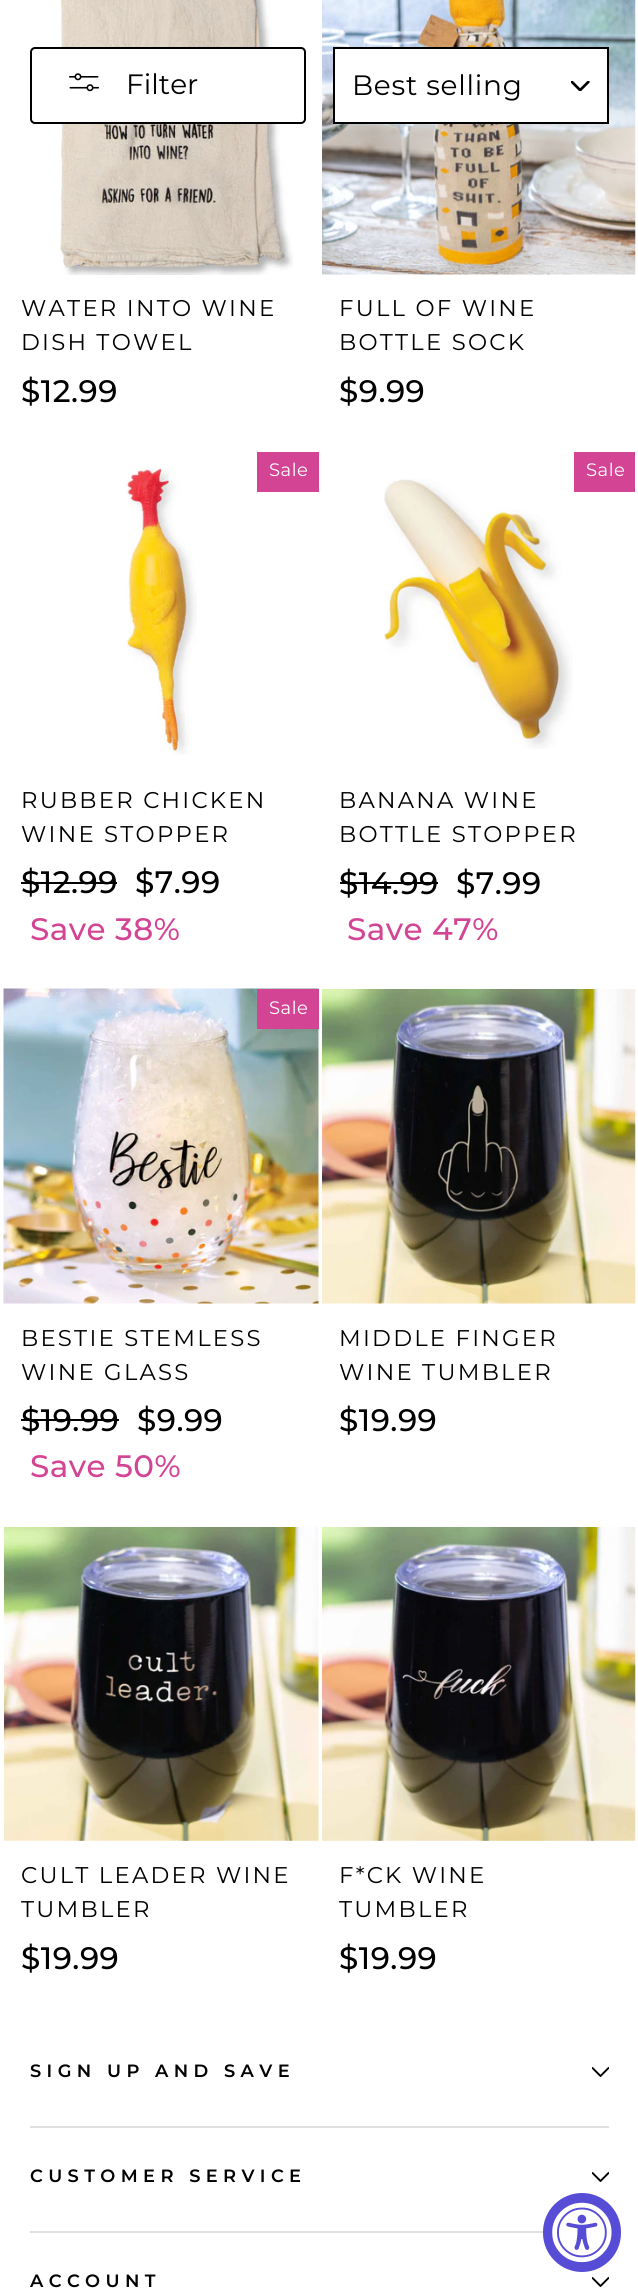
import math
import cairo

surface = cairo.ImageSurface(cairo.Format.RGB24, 638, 2288)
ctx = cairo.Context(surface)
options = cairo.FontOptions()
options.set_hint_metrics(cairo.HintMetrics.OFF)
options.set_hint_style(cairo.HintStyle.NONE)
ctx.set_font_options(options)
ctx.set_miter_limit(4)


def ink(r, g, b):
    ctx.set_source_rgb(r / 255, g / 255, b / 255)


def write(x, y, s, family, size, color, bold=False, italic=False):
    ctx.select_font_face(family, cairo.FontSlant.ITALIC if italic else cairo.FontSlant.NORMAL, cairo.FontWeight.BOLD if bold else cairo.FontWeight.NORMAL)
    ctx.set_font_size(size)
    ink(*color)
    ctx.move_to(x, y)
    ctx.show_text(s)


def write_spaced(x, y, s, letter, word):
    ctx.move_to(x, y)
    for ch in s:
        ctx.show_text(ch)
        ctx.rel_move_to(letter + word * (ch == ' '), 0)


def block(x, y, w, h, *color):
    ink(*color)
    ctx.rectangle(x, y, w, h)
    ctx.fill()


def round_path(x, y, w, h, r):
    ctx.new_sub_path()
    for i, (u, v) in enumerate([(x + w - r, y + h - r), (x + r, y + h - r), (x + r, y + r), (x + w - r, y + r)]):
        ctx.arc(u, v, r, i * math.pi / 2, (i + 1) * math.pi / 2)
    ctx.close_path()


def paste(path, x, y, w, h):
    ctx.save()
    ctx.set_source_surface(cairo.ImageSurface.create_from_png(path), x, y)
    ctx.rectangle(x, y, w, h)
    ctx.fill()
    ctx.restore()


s1 = dict(family="Montserrat Thin", size=28, color=(0, 0, 0))

ink(255, 255, 255)
ctx.paint()
paste("pic3.png", 60, 0, 234, 275)
ink(255, 255, 255)
round_path(31, 48, 274, 75, 4)
ctx.fill_preserve()
ink(0, 0, 0)
ctx.stroke()
paste("pic1.png", 69, 73, 30, 19)
write(126, 94, "Filter", **s1)
paste("pic4.png", 322, 0, 314, 275)
block(335, 49, 272, 73, 255, 255, 255)
paste("pic2.png", 571, 81, 19, 10)
ctx.rectangle(334, 48, 274, 75)
ink(0, 0, 0)
ctx.stroke()
write_spaced(352, 95, "Best selling", 0.75, 0)
ctx.set_font_size(22.75)
write_spaced(21, 316, "WATER INTO WINE", 2.25, 0)
write_spaced(21, 350, "DISH TOWEL", 2.25, 0)
ctx.select_font_face("Montserrat Medium")
ctx.set_font_size(31)
write_spaced(21, 402, "$12.99", 0.5, 0)
ctx.select_font_face("Montserrat Thin")
ctx.set_font_size(22.75)
write_spaced(339, 316, "FULL OF WINE", 2.25, 0)
write_spaced(339, 350, "BOTTLE SOCK", 2.25, 0)
ctx.select_font_face("Montserrat Medium")
ctx.set_font_size(31)
write_spaced(339, 402, "$9.99", 0.5, 0)
block(257, 452, 62, 40, 212, 68, 148)
ctx.select_font_face("Montserrat Thin")
ctx.set_font_size(18)
ink(255, 255, 255)
write_spaced(269, 476, "Sale", 0.5, 0)
paste("pic5.png", 123, 467, 74, 288)
ctx.set_font_size(22.75)
ink(0, 0, 0)
write_spaced(21, 808, "RUBBER CHICKEN", 2.25, 0)
write_spaced(21, 842, "WINE STOPPER", 2.25, 0)
ctx.select_font_face("Montserrat Medium")
ctx.set_font_size(31)
write_spaced(21, 893, "$12.99", 0.5, 0)
block(21, 882, 96, 2, 0, 0, 0)
write_spaced(135, 893, "$7.99", 0.5, 0)
ink(212, 68, 148)
write_spaced(30, 940, "Save 38%", 0.5, 0)
block(574, 452, 61, 40, 212, 68, 148)
ctx.select_font_face("Montserrat Thin")
ctx.set_font_size(18)
ink(255, 255, 255)
write_spaced(586, 476, "Sale", 0.5, 0)
paste("pic6.png", 383, 478, 190, 271)
ctx.set_font_size(22.75)
ink(0, 0, 0)
write_spaced(339, 808, "BANANA WINE", 2.25, 0)
write_spaced(339, 842, "BOTTLE STOPPER", 2.25, 0)
ctx.select_font_face("Montserrat Medium")
ctx.set_font_size(31)
write_spaced(339, 894, "$14.99", 0.5, 0)
block(340, 882, 98, 2, 0, 0, 0)
write_spaced(456, 894, "$7.99", 0.5, 0)
ink(212, 68, 148)
write_spaced(347, 940, "Save 47%", 0.5, 0)
paste("pic7.png", 3, 988, 316, 316)
block(257, 989, 62, 40, 212, 68, 148)
ctx.select_font_face("Montserrat Thin")
ctx.set_font_size(18)
ink(255, 255, 255)
write_spaced(269, 1014, "Sale", 0.5, 0)
ctx.set_font_size(22.75)
ink(0, 0, 0)
write_spaced(21, 1346, "BESTIE STEMLESS", 2.25, 0)
write_spaced(21, 1380, "WINE GLASS", 2.25, 0)
ctx.select_font_face("Montserrat Medium")
ctx.set_font_size(31)
write_spaced(21, 1431, "$19.99", 0.5, 0)
block(21, 1419, 98, 2, 0, 0, 0)
write_spaced(137, 1431, "$9.99", 0.5, 0)
ink(212, 68, 148)
write_spaced(30, 1477, "Save 50%", 0.5, 0)
paste("pic8.png", 322, 989, 314, 315)
ctx.select_font_face("Montserrat Thin")
ctx.set_font_size(22.75)
ink(0, 0, 0)
write_spaced(339, 1346, "MIDDLE FINGER", 2.25, 0)
write_spaced(339, 1380, "WINE TUMBLER", 2.25, 0)
ctx.select_font_face("Montserrat Medium")
ctx.set_font_size(31)
write_spaced(339, 1431, "$19.99", 0.5, 0)
paste("pic9.png", 4, 1527, 315, 314)
ctx.select_font_face("Montserrat Thin")
ctx.set_font_size(22.75)
write_spaced(21, 1883, "CULT LEADER WINE", 2.25, 0)
write_spaced(21, 1917, "TUMBLER", 2.25, 0)
ctx.select_font_face("Montserrat Medium")
ctx.set_font_size(31)
write_spaced(21, 1969, "$19.99", 0.5, 0)
paste("pic10.png", 322, 1527, 314, 314)
ctx.select_font_face("Montserrat Thin")
ctx.set_font_size(22.75)
write_spaced(339, 1883, "F*CK WINE", 2.25, 0)
write_spaced(339, 1917, "TUMBLER", 2.25, 0)
ctx.select_font_face("Montserrat Medium")
ctx.set_font_size(31)
write_spaced(339, 1969, "$19.99", 0.5, 0)
ctx.select_font_face("Montserrat SemiBold")
ctx.set_font_size(17.8)
write_spaced(30, 2077, "SIGN UP AND SAVE", 5.4, 0)
ctx.save()
ctx.rectangle(592, 2063, 17, 18)
ctx.clip()
ctx.new_path()
ctx.move_to(592.5, 2068)
ctx.line_to(600.5, 2076)
ctx.line_to(608.5, 2068)
ctx.set_line_width(1.9)
ctx.set_line_cap(cairo.LineCap.ROUND)
ctx.set_line_join(cairo.LineJoin.ROUND)
ctx.stroke()
ctx.restore()
block(30, 2126, 579, 2, 224, 224, 224)
ink(0, 0, 0)
write_spaced(30, 2182, "CUSTOMER SERVICE", 5.4, 0)
ctx.save()
ctx.rectangle(592, 2168, 17, 18)
ctx.clip()
ctx.new_path()
ctx.move_to(592.5, 2173)
ctx.line_to(600.5, 2181)
ctx.line_to(608.5, 2173)
ctx.set_line_width(1.9)
ctx.set_line_cap(cairo.LineCap.ROUND)
ctx.set_line_join(cairo.LineJoin.ROUND)
ctx.stroke()
ctx.restore()
block(30, 2231, 514, 2, 224, 224, 224)
ink(0, 0, 0)
write_spaced(30, 2287, "ACCOUNT", 5.4, 0)
ctx.save()
ctx.rectangle(592, 2273, 17, 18)
ctx.clip()
ctx.new_path()
ctx.move_to(592.5, 2278)
ctx.line_to(600.5, 2286)
ctx.line_to(608.5, 2278)
ctx.set_line_width(1.9)
ctx.set_line_cap(cairo.LineCap.ROUND)
ctx.set_line_join(cairo.LineJoin.ROUND)
ctx.stroke()
ctx.restore()
ink(87, 76, 213)
round_path(543, 2193, 78, 79, 39)
ctx.fill()
paste("pic11.png", 552, 2202, 60, 61)
surface.write_to_png("screenshot.png")
